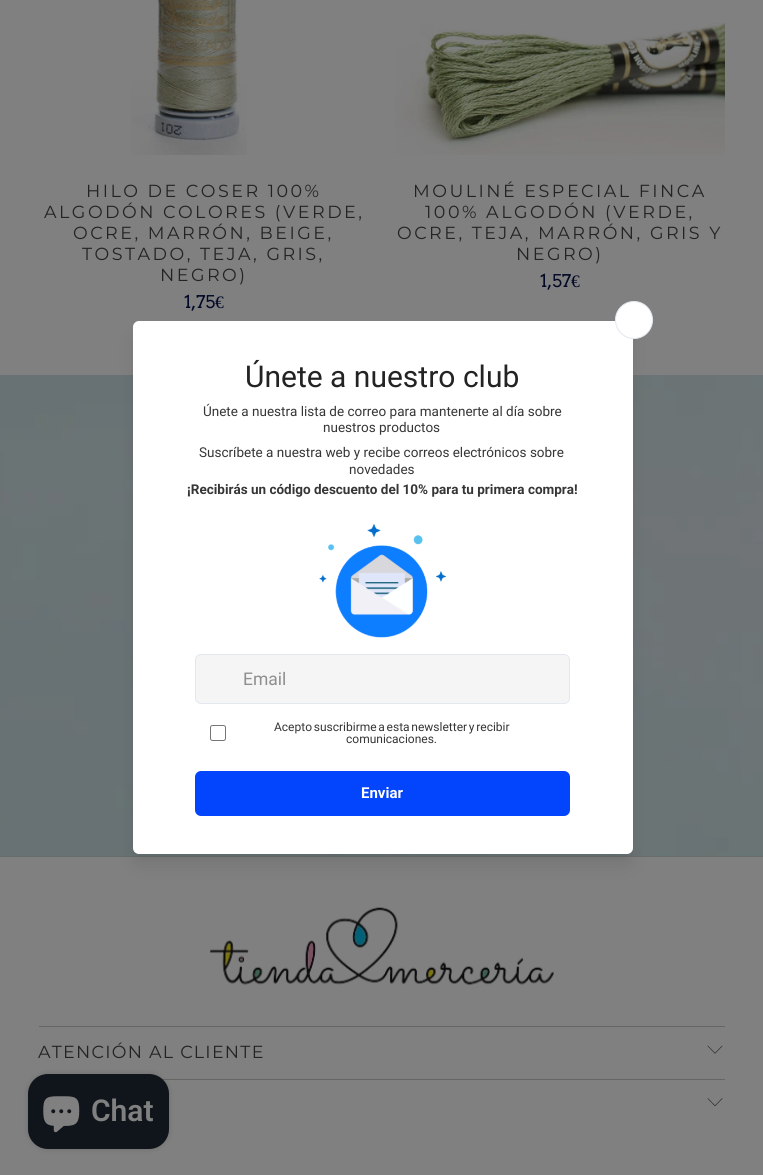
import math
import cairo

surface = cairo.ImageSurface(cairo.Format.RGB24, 763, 1175)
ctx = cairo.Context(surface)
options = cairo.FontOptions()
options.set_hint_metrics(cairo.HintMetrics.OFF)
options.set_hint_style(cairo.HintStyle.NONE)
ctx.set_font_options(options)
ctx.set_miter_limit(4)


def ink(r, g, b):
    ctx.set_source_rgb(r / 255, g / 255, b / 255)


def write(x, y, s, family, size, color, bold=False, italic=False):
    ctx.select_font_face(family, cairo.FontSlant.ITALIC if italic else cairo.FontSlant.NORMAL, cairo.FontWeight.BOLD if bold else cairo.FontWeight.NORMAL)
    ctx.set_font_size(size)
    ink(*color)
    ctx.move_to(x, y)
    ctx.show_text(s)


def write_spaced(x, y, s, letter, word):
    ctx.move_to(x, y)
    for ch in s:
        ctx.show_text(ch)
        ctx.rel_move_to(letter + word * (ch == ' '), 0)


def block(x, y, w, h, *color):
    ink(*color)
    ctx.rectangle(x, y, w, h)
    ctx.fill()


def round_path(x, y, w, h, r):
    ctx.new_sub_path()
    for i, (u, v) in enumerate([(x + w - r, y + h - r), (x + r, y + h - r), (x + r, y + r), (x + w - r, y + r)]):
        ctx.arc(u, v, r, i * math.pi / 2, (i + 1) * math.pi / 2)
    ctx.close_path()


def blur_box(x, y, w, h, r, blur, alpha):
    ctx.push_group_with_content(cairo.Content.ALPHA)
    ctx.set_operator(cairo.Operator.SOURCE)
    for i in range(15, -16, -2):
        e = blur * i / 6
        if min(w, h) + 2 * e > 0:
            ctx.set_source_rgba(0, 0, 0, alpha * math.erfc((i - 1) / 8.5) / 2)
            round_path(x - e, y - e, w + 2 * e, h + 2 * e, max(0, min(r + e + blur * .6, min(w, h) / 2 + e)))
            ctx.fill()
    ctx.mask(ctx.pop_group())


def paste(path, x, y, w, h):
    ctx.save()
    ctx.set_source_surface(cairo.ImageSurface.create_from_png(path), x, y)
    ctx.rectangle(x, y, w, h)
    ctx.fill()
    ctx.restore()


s1 = dict(family="Arvo", size=17.5, color=(1, 8, 38))
s2 = dict(family="Liberation Serif", size=17.5, color=(1, 8, 38))
s3 = dict(family="Roboto", size=30, color=(35, 35, 35))
s4 = dict(family="Roboto", size=13.5, color=(54, 54, 54))
s5 = dict(family="Roboto", size=13.5, color=(54, 54, 54), bold=True)
s6 = dict(family="Roboto", size=17.5, color=(142, 142, 142))
s7 = dict(family="Roboto", size=12, color=(54, 54, 54))
s8 = dict(family="Roboto", size=15, color=(255, 255, 255), bold=True)
s9 = dict(family="Roboto SemiBold", size=30, color=(128, 128, 128))

ink(128, 128, 128)
ctx.paint()
paste("pic1.png", 131, 0, 116, 155)
ctx.select_font_face("Montserrat")
ctx.set_font_size(17.5)
ink(35, 35, 35)
write_spaced(86, 197, "HILO DE COSER 100%", 2.5, 0)
write_spaced(44, 218, "ALGODÓN COLORES (VERDE,", 2.5, 0)
write_spaced(73, 239, "OCRE, MARRÓN, BEIGE,", 2.5, 0)
write_spaced(82, 260, "TOSTADO, TEJA, GRIS,", 2.5, 0)
write_spaced(160, 281, "NEGRO)", 2.5, 0)
write(184, 308, "1,75", **s1)
write(215, 308, "€", **s2)
paste("pic2.png", 395, 23, 330, 132)
ctx.select_font_face("Montserrat")
ink(35, 35, 35)
write_spaced(413, 197, "MOULINÉ ESPECIAL FINCA", 2.5, 0)
write_spaced(425, 218, "100% ALGODÓN (VERDE,", 2.5, 0)
write_spaced(397, 239, "OCRE, TEJA, MARRÓN, GRIS Y", 2.5, 0)
write_spaced(516, 260, "NEGRO)", 2.5, 0)
write(540, 287, "1,57", **s1)
write(571, 287, "€", **s2)
block(0, 856, 763, 1, 102, 102, 102)
paste("pic4.png", 0, 375, 763, 482)
ink(0, 0, 0)
blur_box(136, 338, 493, 525, 2.5, 9.5, 0.1)
ctx.save()
ctx.rectangle(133, 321, 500, 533)
ctx.clip()
blur_box(136, 325, 493, 525, 2.5, 12.5, 0.12)
ctx.restore()
ink(255, 255, 255)
round_path(133, 321, 500, 533, 6)
ctx.fill()
ctx.arc(634, 320, 18.5, 0, 2 * math.pi)
ctx.fill_preserve()
ink(226, 232, 240)
ctx.set_line_width(1)
ctx.stroke()
write(245, 387, "Únete a nuestro club", **s3)
write(203, 416, "Únete a nuestra lista de correo para mantenerte al día sobre", **s4)
write(323, 432, "nuestros productos", **s4)
write(199, 457, "Suscríbete a nuestra web y recibe correos electrónicos sobre", **s4)
write(349, 474, "novedades", **s4)
write(187, 494, "¡Recibirás un código descuento del 10% para tu primera compra!", **s5)
paste("pic3.png", 319, 523, 128, 115)
ink(245, 245, 245)
round_path(195.5, 654.5, 374, 49, 5.5)
ctx.fill_preserve()
ink(226, 232, 240)
ctx.stroke()
write(243, 685, "Email", **s6)
round_path(210.5, 725.5, 15, 15, 2)
ink(118, 118, 118)
ctx.stroke()
ctx.set_font_size(12)
ink(54, 54, 54)
write_spaced(274, 731, "Acepto suscribirme a esta newsletter y recibir", 0, -1.25)
write(346, 743, "comunicaciones.", **s7)
ink(3, 69, 252)
round_path(195, 771, 375, 45, 6)
ctx.fill()
write(361, 798, "Enviar", **s8)
paste("pic5.png", 210, 907, 344, 78)
block(39, 1026, 686, 1, 102, 102, 102)
ctx.select_font_face("Montserrat")
ctx.set_font_size(17.5)
ink(35, 35, 35)
write_spaced(38, 1058, "ATENCIÓN AL CLIENTE", 1.25, 0)
paste("pic6.png", 707, 1045, 16, 9)
block(162, 1079, 563, 1, 102, 102, 102)
paste("pic7.png", 707, 1098, 16, 9)
ink(0, 0, 0)
blur_box(28, 1074, 141, 75, 20, 3, 0.15)
ink(16, 21, 27)
round_path(28, 1074, 141, 75, 20)
ctx.fill()
paste("pic8.png", 43, 1096, 37, 37)
write(91, 1121, "Chat", **s9)
surface.write_to_png("screenshot.png")
